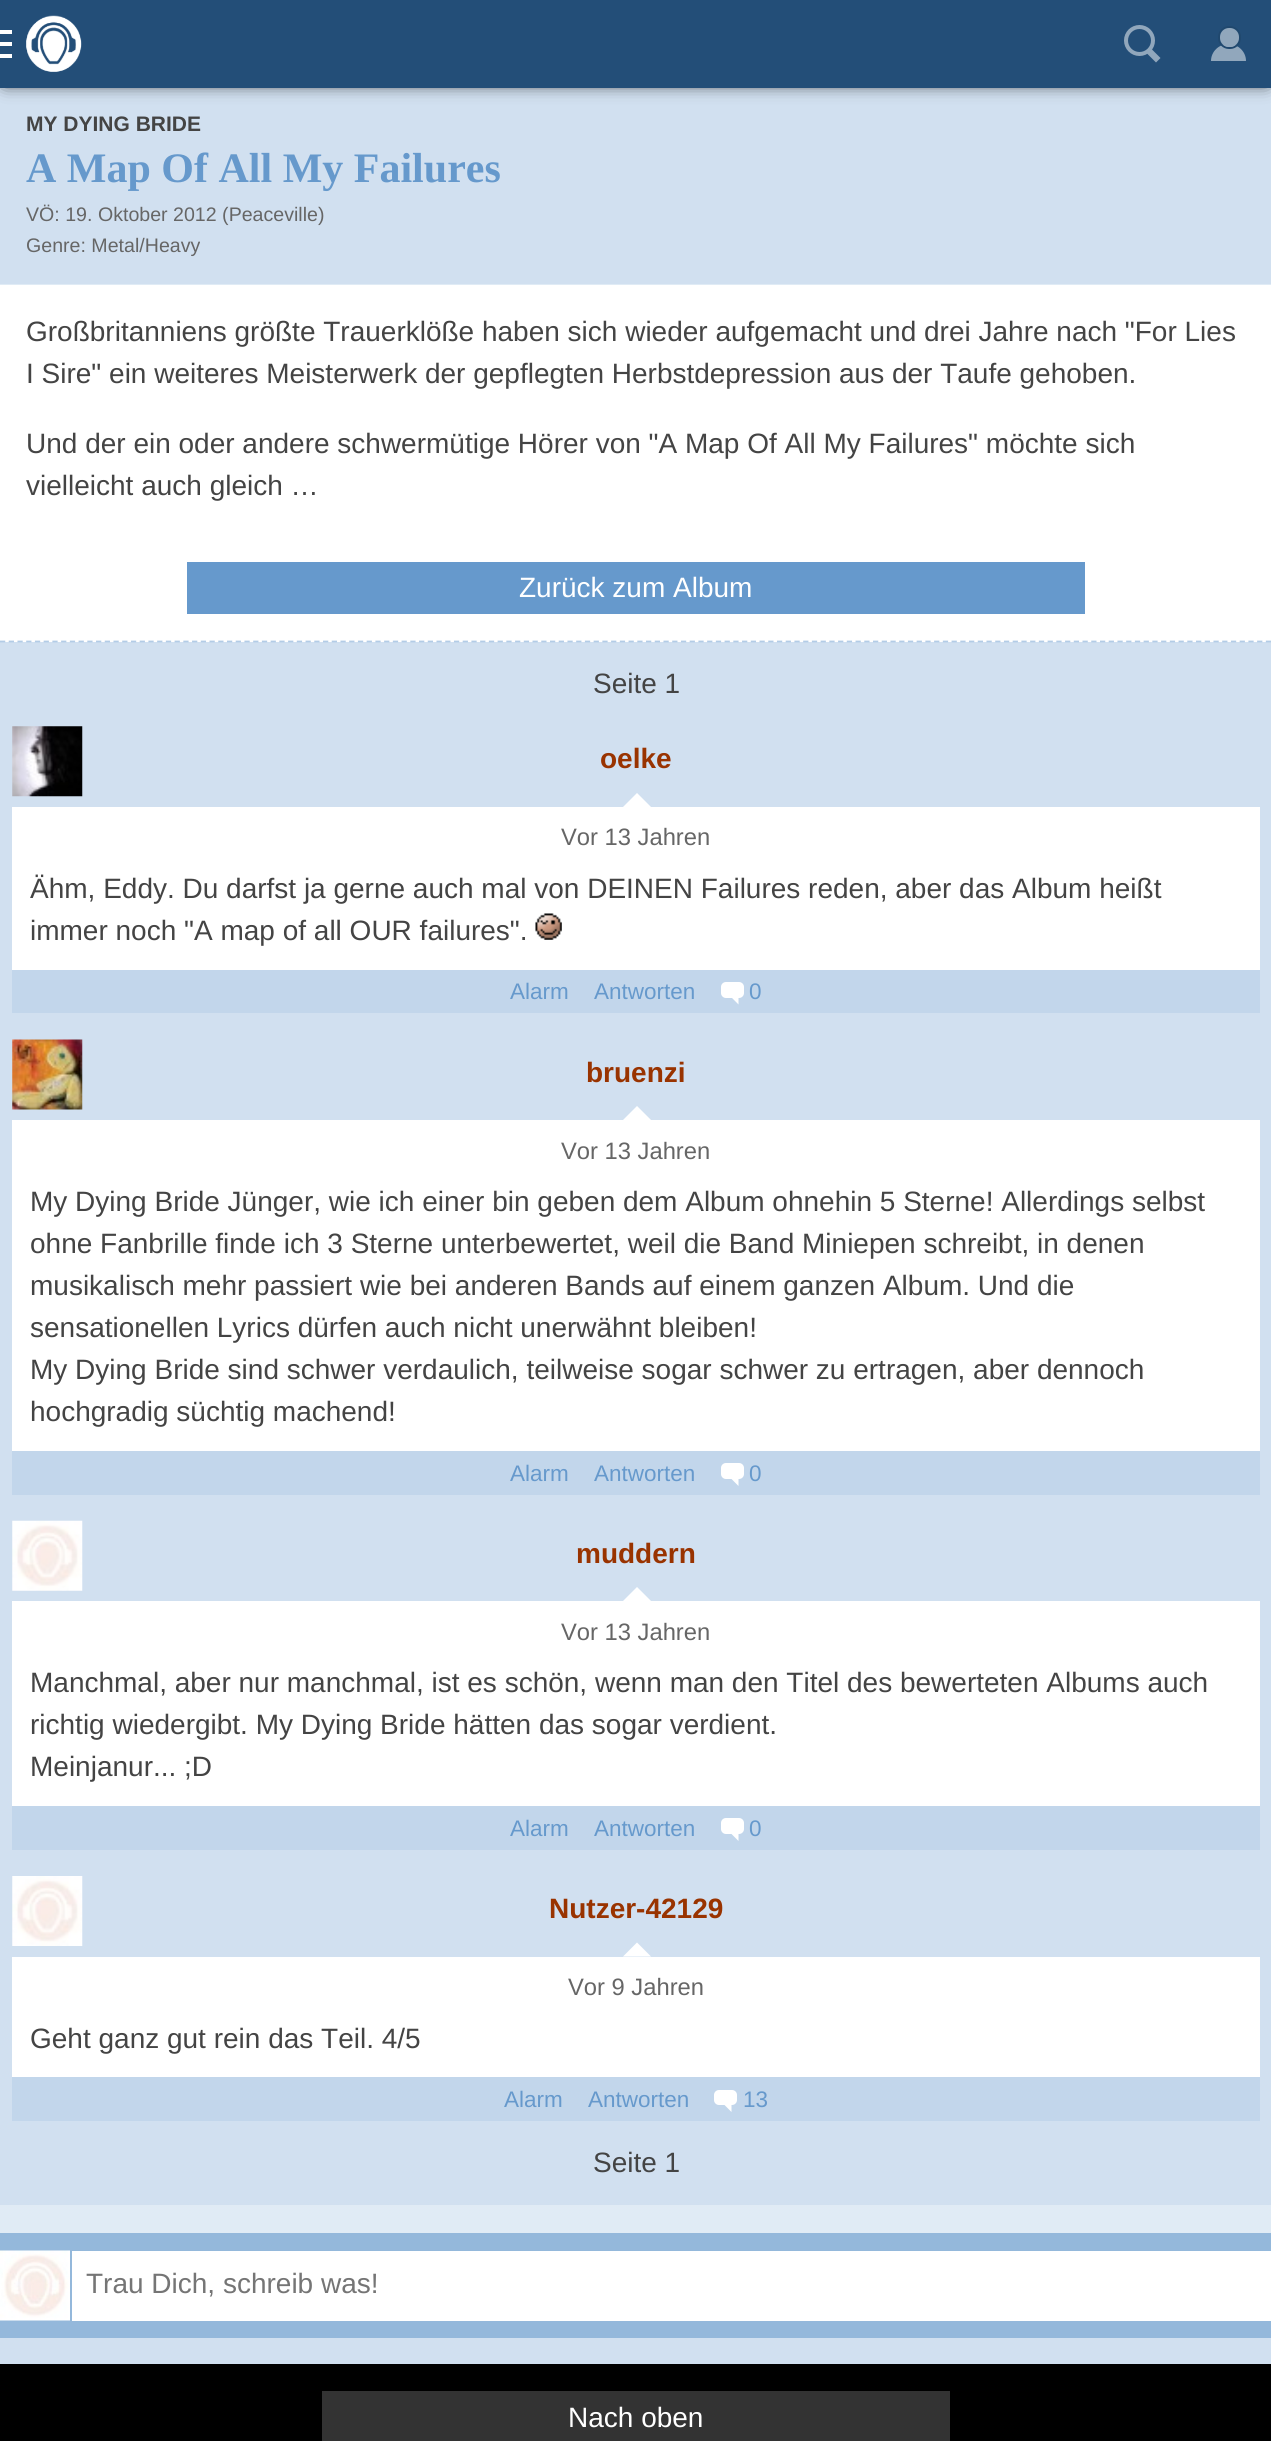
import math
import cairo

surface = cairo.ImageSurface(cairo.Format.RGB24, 1271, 2441)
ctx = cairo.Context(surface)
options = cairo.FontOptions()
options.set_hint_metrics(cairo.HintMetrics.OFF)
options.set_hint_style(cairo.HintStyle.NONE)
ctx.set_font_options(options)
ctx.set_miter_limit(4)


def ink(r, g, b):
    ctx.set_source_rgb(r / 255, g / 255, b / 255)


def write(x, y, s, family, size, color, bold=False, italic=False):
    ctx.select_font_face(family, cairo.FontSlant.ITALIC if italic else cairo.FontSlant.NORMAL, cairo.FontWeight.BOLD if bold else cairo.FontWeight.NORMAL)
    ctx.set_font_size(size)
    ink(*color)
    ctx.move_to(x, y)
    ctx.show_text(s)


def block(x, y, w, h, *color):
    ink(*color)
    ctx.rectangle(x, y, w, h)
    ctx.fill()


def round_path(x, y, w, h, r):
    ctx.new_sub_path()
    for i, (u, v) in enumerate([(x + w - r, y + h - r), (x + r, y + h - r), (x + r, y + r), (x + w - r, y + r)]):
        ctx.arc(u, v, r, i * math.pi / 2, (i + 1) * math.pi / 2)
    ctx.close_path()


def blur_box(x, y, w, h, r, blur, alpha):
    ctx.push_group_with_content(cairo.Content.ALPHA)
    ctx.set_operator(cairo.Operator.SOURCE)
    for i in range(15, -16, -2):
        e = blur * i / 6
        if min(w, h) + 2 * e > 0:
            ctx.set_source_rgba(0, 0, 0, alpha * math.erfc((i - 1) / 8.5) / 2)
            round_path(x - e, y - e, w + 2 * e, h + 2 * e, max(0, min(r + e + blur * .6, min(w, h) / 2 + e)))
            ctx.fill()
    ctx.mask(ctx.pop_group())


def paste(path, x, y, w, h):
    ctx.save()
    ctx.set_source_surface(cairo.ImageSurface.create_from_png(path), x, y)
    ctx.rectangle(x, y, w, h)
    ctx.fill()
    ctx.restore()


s1 = dict(family="Liberation Sans", size=21, color=(68, 68, 68), bold=True)
s2 = dict(family="Liberation Serif", size=42, color=(102, 153, 204), bold=True)
s3 = dict(family="Liberation Sans", size=19.6, color=(102, 102, 102))
s4 = dict(family="Liberation Sans", size=28, color=(68, 68, 68))
s5 = dict(family="Liberation Sans", size=28, color=(255, 255, 255))
s6 = dict(family="Liberation Sans", size=28, color=(153, 51, 0), bold=True)
s7 = dict(family="Liberation Sans", size=23.75, color=(102, 102, 102))
s8 = dict(family="Liberation Sans", size=22.5, color=(102, 153, 204))
s9 = dict(family="Liberation Sans", size=28, color=(117, 117, 117))

ink(224, 235, 245)
ctx.paint()
block(0, 88, 1271, 196, 209, 224, 240)
ink(0, 0, 0)
blur_box(5, 5, 1262, 77, 0, 9, 1)
block(0, 0, 1271, 88, 35, 78, 120)
paste("pic1.png", 26, 15, 56, 57)
block(0, 30, 12, 4, 255, 255, 255)
block(0, 54, 12, 4, 255, 255, 255)
block(0, 42, 12, 4, 255, 255, 255)
ink(145, 167, 188)
ctx.new_path()
ctx.move_to(1160.5, 58)
ctx.line_to(1156, 62.5)
ctx.line_to(1146, 52.5)
ctx.line_to(1150.5, 48)
ctx.close_path()
ctx.fill()
ctx.arc(1139.5, 40.5, 13.5, 0, 2 * math.pi)
ctx.set_line_width(4)
ctx.stroke()
ctx.set_fill_rule(cairo.FillRule.EVEN_ODD)
ctx.new_path()
ctx.move_to(1228.5, 44)
ctx.curve_to(1238, 44, 1246, 51.5, 1246, 61)
ctx.line_to(1211, 61)
ctx.curve_to(1211, 51.5, 1219, 44, 1228.5, 44)
ctx.close_path()
ctx.move_to(1228.5, 61)
ctx.close_path()
ctx.fill()
round_path(1219, 27, 21, 21, 10)
ink(32, 72, 110)
ctx.set_line_width(2)
ctx.stroke()
ink(145, 167, 188)
round_path(1220, 28, 19, 19, 9)
ctx.fill()
write(26, 131, "MY DYING BRIDE", **s1)
write(26, 182, "A Map Of All My Failures", **s2)
write(26, 221, "VÖ: 19. Oktober 2012 (Peaceville)", **s3)
write(26, 252, "Genre: Metal/Heavy", **s3)
block(0, 642, 1271, 1563, 209, 224, 240)
block(0, 285, 1271, 357, 255, 255, 255)
ctx.new_path()
ctx.move_to(0, 641.5)
ctx.line_to(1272, 641.5)
ink(179, 204, 230)
ctx.set_line_width(1.8)
ctx.set_dash([5.25, 3.48])
ctx.stroke()
write(26, 341, "Großbritanniens größte Trauerklöße haben sich wieder aufgemacht und drei Jahre nach \"For Lies", **s4)
write(26, 383, "I Sire\" ein weiteres Meisterwerk der gepflegten Herbstdepression aus der Taufe gehoben.", **s4)
write(26, 453, "Und der ein oder andere schwermütige Hörer von \"A Map Of All My Failures\" möchte sich", **s4)
write(26, 495, "vielleicht auch gleich …", **s4)
block(187, 562, 898, 52, 102, 153, 204)
write(519, 597, "Zurück zum Album", **s5)
write(593, 693, "Seite 1", **s4)
paste("pic2.png", 12, 726, 71, 71)
block(12, 807, 1248, 163, 255, 255, 255)
write(600, 768, "oelke", **s6)
ink(255, 255, 255)
ctx.set_fill_rule(cairo.FillRule.WINDING)
ctx.new_path()
ctx.move_to(651, 807)
ctx.line_to(623, 807)
ctx.line_to(637, 793)
ctx.close_path()
ctx.fill()
write(561, 845, "Vor 13 Jahren", **s7)
write(30, 898, "Ähm, Eddy. Du darfst ja gerne auch mal von DEINEN Failures reden, aber das Album heißt", **s4)
write(30, 940, "immer noch \"A map of all OUR failures\".", **s4)
paste("pic3.png", 535, 913, 27, 27)
block(12, 970, 1248, 43, 194, 214, 235)
write(510, 999, "Alarm", **s8)
write(594, 999, "Antworten", **s8)
ink(255, 255, 255)
round_path(721, 982, 23, 16, 5)
ctx.fill()
ctx.new_path()
ctx.move_to(738.5, 997.5)
ctx.line_to(738.5, 1004.5)
ctx.line_to(731.5, 997.5)
ctx.close_path()
ctx.fill()
write(749, 999, "0", **s8)
paste("pic4.png", 12, 1039, 71, 71)
block(12, 1120, 1248, 331, 255, 255, 255)
write(586, 1082, "bruenzi", **s6)
ink(255, 255, 255)
ctx.new_path()
ctx.move_to(651, 1120)
ctx.line_to(623, 1120)
ctx.line_to(637, 1106)
ctx.close_path()
ctx.fill()
write(561, 1159, "Vor 13 Jahren", **s7)
write(30, 1211, "My Dying Bride Jünger, wie ich einer bin geben dem Album ohnehin 5 Sterne! Allerdings selbst", **s4)
write(30, 1253, "ohne Fanbrille finde ich 3 Sterne unterbewertet, weil die Band Miniepen schreibt, in denen", **s4)
write(30, 1295, "musikalisch mehr passiert wie bei anderen Bands auf einem ganzen Album. Und die", **s4)
write(30, 1337, "sensationellen Lyrics dürfen auch nicht unerwähnt bleiben!", **s4)
write(30, 1379, "My Dying Bride sind schwer verdaulich, teilweise sogar schwer zu ertragen, aber dennoch", **s4)
write(30, 1421, "hochgradig süchtig machend!", **s4)
block(12, 1451, 1248, 44, 194, 214, 235)
write(510, 1481, "Alarm", **s8)
write(594, 1481, "Antworten", **s8)
ink(255, 255, 255)
round_path(721, 1463, 23, 16, 5)
ctx.fill()
ctx.new_path()
ctx.move_to(738.5, 1479)
ctx.line_to(738.5, 1486)
ctx.line_to(731.5, 1479)
ctx.close_path()
ctx.fill()
write(749, 1481, "0", **s8)
paste("pic5.png", 12, 1520, 71, 71)
block(12, 1601, 1248, 205, 255, 255, 255)
write(576, 1563, "muddern", **s6)
ink(255, 255, 255)
ctx.new_path()
ctx.move_to(651, 1601)
ctx.line_to(623, 1601)
ctx.line_to(637, 1587)
ctx.close_path()
ctx.fill()
write(561, 1640, "Vor 13 Jahren", **s7)
write(30, 1692, "Manchmal, aber nur manchmal, ist es schön, wenn man den Titel des bewerteten Albums auch", **s4)
write(30, 1734, "richtig wiedergibt. My Dying Bride hätten das sogar verdient.", **s4)
write(30, 1776, "Meinjanur... ;D", **s4)
block(12, 1806, 1248, 44, 194, 214, 235)
write(510, 1836, "Alarm", **s8)
write(594, 1836, "Antworten", **s8)
ink(255, 255, 255)
round_path(721, 1818, 23, 16, 5)
ctx.fill()
ctx.new_path()
ctx.move_to(738.5, 1834)
ctx.line_to(738.5, 1841)
ctx.line_to(731.5, 1834)
ctx.close_path()
ctx.fill()
write(749, 1836, "0", **s8)
paste("pic6.png", 12, 1876, 71, 70)
block(12, 1957, 1248, 120, 255, 255, 255)
write(549, 1918, "Nutzer-42129", **s6)
ink(255, 255, 255)
ctx.new_path()
ctx.move_to(651, 1956.5)
ctx.line_to(623, 1956.5)
ctx.line_to(637, 1942.5)
ctx.close_path()
ctx.fill()
write(568, 1995, "Vor 9 Jahren", **s7)
write(30, 2048, "Geht ganz gut rein das Teil. 4/5", **s4)
block(12, 2077, 1248, 44, 194, 214, 235)
write(504, 2107, "Alarm", **s8)
write(588, 2107, "Antworten", **s8)
ink(255, 255, 255)
round_path(714, 2090, 23, 15, 5)
ctx.fill()
ctx.new_path()
ctx.move_to(731.5, 2105)
ctx.line_to(731.5, 2112)
ctx.line_to(724.5, 2105)
ctx.close_path()
ctx.fill()
write(743, 2107, "13", **s8)
write(593, 2172, "Seite 1", **s4)
block(0, 2233, 1271, 105, 148, 184, 219)
paste("pic7.png", 0, 2250, 70, 71)
block(72, 2251, 1199, 70, 255, 255, 255)
write(86, 2293, "Trau Dich, schreib was!", **s9)
block(0, 2338, 1271, 26, 209, 224, 240)
block(0, 2364, 1271, 77, 0, 0, 0)
block(322, 2391, 628, 50, 51, 51, 51)
write(568, 2427, "Nach oben", **s5)
surface.write_to_png("screenshot.png")
